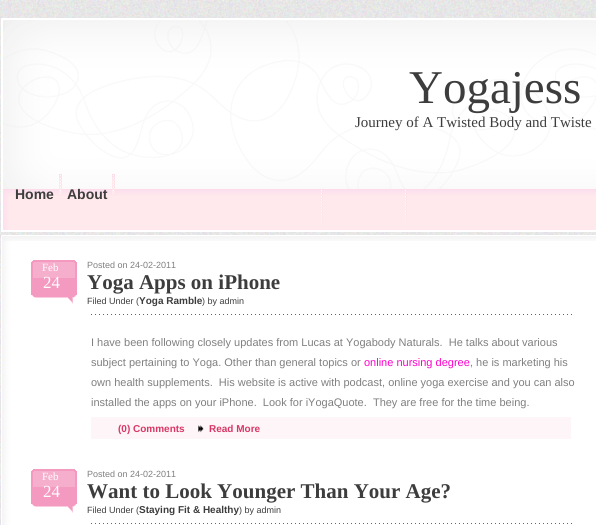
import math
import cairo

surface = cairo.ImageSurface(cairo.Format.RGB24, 596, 525)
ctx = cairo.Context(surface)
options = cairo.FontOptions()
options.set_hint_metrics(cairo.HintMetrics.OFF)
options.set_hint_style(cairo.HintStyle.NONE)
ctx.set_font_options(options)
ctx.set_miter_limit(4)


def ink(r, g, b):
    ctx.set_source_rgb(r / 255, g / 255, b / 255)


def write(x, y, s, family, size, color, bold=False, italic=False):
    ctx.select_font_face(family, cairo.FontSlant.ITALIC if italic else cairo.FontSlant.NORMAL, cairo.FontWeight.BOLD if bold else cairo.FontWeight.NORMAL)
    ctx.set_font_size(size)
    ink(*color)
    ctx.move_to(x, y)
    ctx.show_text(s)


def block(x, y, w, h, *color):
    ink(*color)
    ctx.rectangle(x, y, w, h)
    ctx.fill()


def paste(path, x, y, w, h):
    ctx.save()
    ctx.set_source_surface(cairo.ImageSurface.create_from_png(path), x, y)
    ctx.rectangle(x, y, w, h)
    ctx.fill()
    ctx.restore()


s1 = dict(family="Liberation Serif", size=47, color=(61, 61, 61))
s2 = dict(family="Liberation Serif", size=15, color=(61, 61, 61))
s3 = dict(family="Liberation Sans", size=14, color=(61, 61, 61), bold=True)
s4 = dict(family="Liberation Serif", size=11, color=(255, 255, 255))
s5 = dict(family="Liberation Serif", size=17, color=(255, 255, 255))
s6 = dict(family="Liberation Sans", size=9, color=(127, 127, 127))
s7 = dict(family="Liberation Serif", size=21, color=(61, 61, 61), bold=True)
s8 = dict(family="Liberation Sans", size=9, color=(61, 61, 61))
s9 = dict(family="Liberation Sans", size=10, color=(61, 61, 61), bold=True)
s10 = dict(family="Liberation Sans", size=11, color=(127, 127, 127))
s11 = dict(family="Liberation Sans", size=11, color=(255, 0, 204))
s12 = dict(family="Liberation Sans", size=10, color=(215, 55, 101), bold=True)

ink(255, 255, 255)
ctx.paint()
paste("pic1.png", 0, 235, 1, 290)
paste("pic2.png", 0, 0, 596, 189)
write(409, 103, "Yogajess", **s1)
write(355, 127, "Journey of A Twisted Body and Twiste", **s2)
paste("pic3.png", 0, 189, 596, 46)
write(15, 199, "Home", **s3)
paste("pic4.png", 59, 174, 3, 20)
write(67, 199, "About", **s3)
paste("pic4.png", 112, 174, 3, 20)
paste("pic5.png", 1, 241, 595, 284)
paste("pic6.png", 1, 235, 595, 6)
paste("pic7.png", 31, 260, 46, 44)
write(42, 271, "Feb", **s4)
write(43, 288, "24", **s5)
write(87, 268, "Posted on 24-02-2011", **s6)
write(87, 289, "Yoga Apps on iPhone", **s7)
write(87, 304, "Filed Under (", **s8)
write(139, 304, "Yoga Ramble", **s9)
write(202, 304, ") by admin", **s8)
paste("pic8.png", 91, 314, 481, 1)
write(91, 346, "I have been following closely updates from Lucas at Yogabody Naturals.  He talks about various", **s10)
write(91, 366, "subject pertaining to Yoga. Other than general topics or", **s10)
write(364, 366, "online nursing degree", **s11)
write(470, 366, ", he is marketing his", **s10)
write(91, 386, "own health supplements.  His website is active with podcast, online yoga exercise and you can also", **s10)
write(91, 406, "installed the apps on your iPhone.  Look for iYogaQuote.  They are free for the time being.", **s10)
block(91, 417, 480, 22, 254, 245, 249)
write(118, 432, "(0) Comments", **s12)
paste("pic9.png", 198, 425, 6, 8)
write(209, 432, "Read More", **s12)
paste("pic7.png", 31, 469, 46, 44)
write(42, 480, "Feb", **s4)
write(43, 497, "24", **s5)
write(87, 477, "Posted on 24-02-2011", **s6)
write(87, 498, "Want to Look Younger Than Your Age?", **s7)
write(87, 513, "Filed Under (", **s8)
write(139, 513, "Staying Fit & Healthy", **s9)
write(239, 513, ") by admin", **s8)
paste("pic8.png", 91, 523, 481, 1)
surface.write_to_png("screenshot.png")
